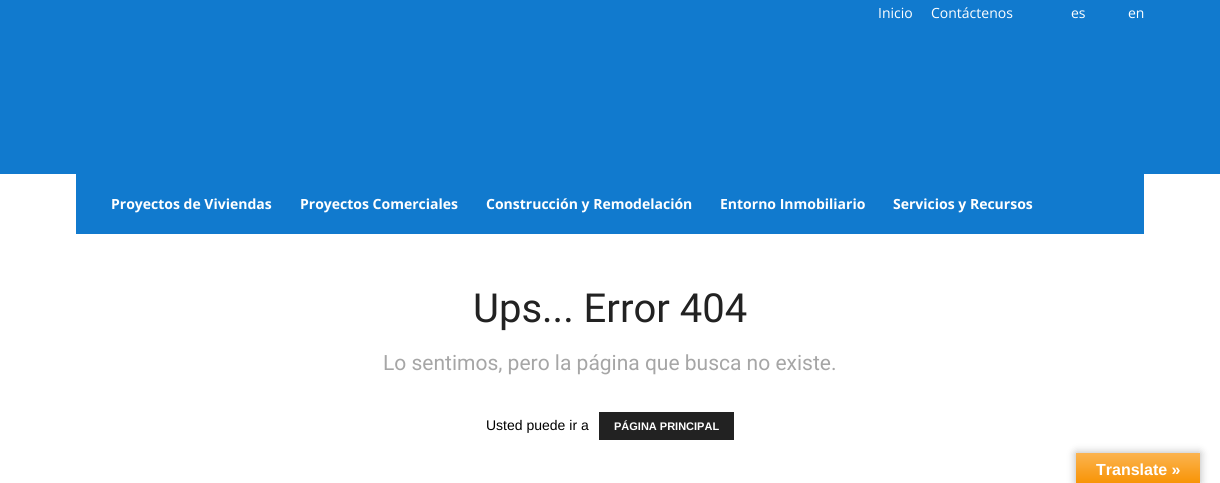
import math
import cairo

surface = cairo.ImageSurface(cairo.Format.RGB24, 1220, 483)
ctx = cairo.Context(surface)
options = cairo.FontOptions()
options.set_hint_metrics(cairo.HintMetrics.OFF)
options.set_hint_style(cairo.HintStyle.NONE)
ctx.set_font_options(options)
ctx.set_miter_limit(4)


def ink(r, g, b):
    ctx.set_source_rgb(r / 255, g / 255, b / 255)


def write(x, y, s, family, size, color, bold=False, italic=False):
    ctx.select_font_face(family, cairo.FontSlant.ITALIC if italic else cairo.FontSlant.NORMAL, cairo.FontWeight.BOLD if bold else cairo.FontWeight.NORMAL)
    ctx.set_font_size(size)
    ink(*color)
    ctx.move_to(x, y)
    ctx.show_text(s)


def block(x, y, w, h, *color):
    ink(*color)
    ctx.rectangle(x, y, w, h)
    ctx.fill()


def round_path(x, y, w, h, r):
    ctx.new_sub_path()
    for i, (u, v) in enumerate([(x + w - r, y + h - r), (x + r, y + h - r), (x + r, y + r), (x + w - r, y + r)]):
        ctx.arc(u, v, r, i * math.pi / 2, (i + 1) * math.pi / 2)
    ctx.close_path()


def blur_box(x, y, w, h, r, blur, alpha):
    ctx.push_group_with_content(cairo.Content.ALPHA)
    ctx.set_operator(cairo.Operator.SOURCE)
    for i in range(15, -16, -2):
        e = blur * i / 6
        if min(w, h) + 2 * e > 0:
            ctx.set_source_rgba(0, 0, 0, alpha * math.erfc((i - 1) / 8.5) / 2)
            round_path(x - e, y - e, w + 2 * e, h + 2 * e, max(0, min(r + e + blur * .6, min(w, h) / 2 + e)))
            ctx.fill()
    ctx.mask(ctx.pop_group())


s1 = dict(family="Open Sans", size=14, color=(255, 255, 255))
s2 = dict(family="Open Sans", size=14, color=(255, 255, 255), bold=True)
s3 = dict(family="Roboto", size=40, color=(34, 34, 34))
s4 = dict(family="Roboto", size=21, color=(166, 166, 166))
s5 = dict(family="Liberation Sans", size=14, color=(0, 0, 0))
s6 = dict(family="Liberation Sans", size=11, color=(255, 255, 255), bold=True)
s7 = dict(family="Liberation Sans", size=16, color=(255, 255, 255), bold=True)

ink(255, 255, 255)
ctx.paint()
block(0, 0, 1220, 174, 17, 122, 206)
write(878, 18, "Inicio", **s1)
write(931, 18, "Contáctenos", **s1)
write(1071, 18, "es", **s1)
write(1128, 18, "en", **s1)
block(76, 174, 1068, 60, 17, 122, 206)
write(111, 209, "Proyectos de Viviendas", **s2)
write(300, 209, "Proyectos Comerciales", **s2)
write(486, 209, "Construcción y Remodelación", **s2)
write(720, 209, "Entorno Inmobiliario", **s2)
write(893, 209, "Servicios y Recursos", **s2)
write(473, 322, "Ups... Error 404", **s3)
write(383, 370, "Lo sentimos, pero la página que busca no existe.", **s4)
write(486, 430, "Usted puede ir a", **s5)
block(599, 412, 135, 28, 34, 34, 34)
write(614, 430, "PÁGINA PRINCIPAL", **s6)
ink(0, 0, 0)
blur_box(1076, 453, 124, 30, 0, 4.5, 0.3)
gradient = cairo.LinearGradient(1138, 453, 1138, 483)
gradient.add_color_stop_rgba(0, 0.984, 0.706, 0.314, 1)
gradient.add_color_stop_rgba(1, 0.973, 0.58, 0.024, 1)
ctx.set_source(gradient)
ctx.rectangle(1076, 453, 124, 30)
ctx.fill()
write(1096, 475, "Translate »", **s7)
surface.write_to_png("screenshot.png")
